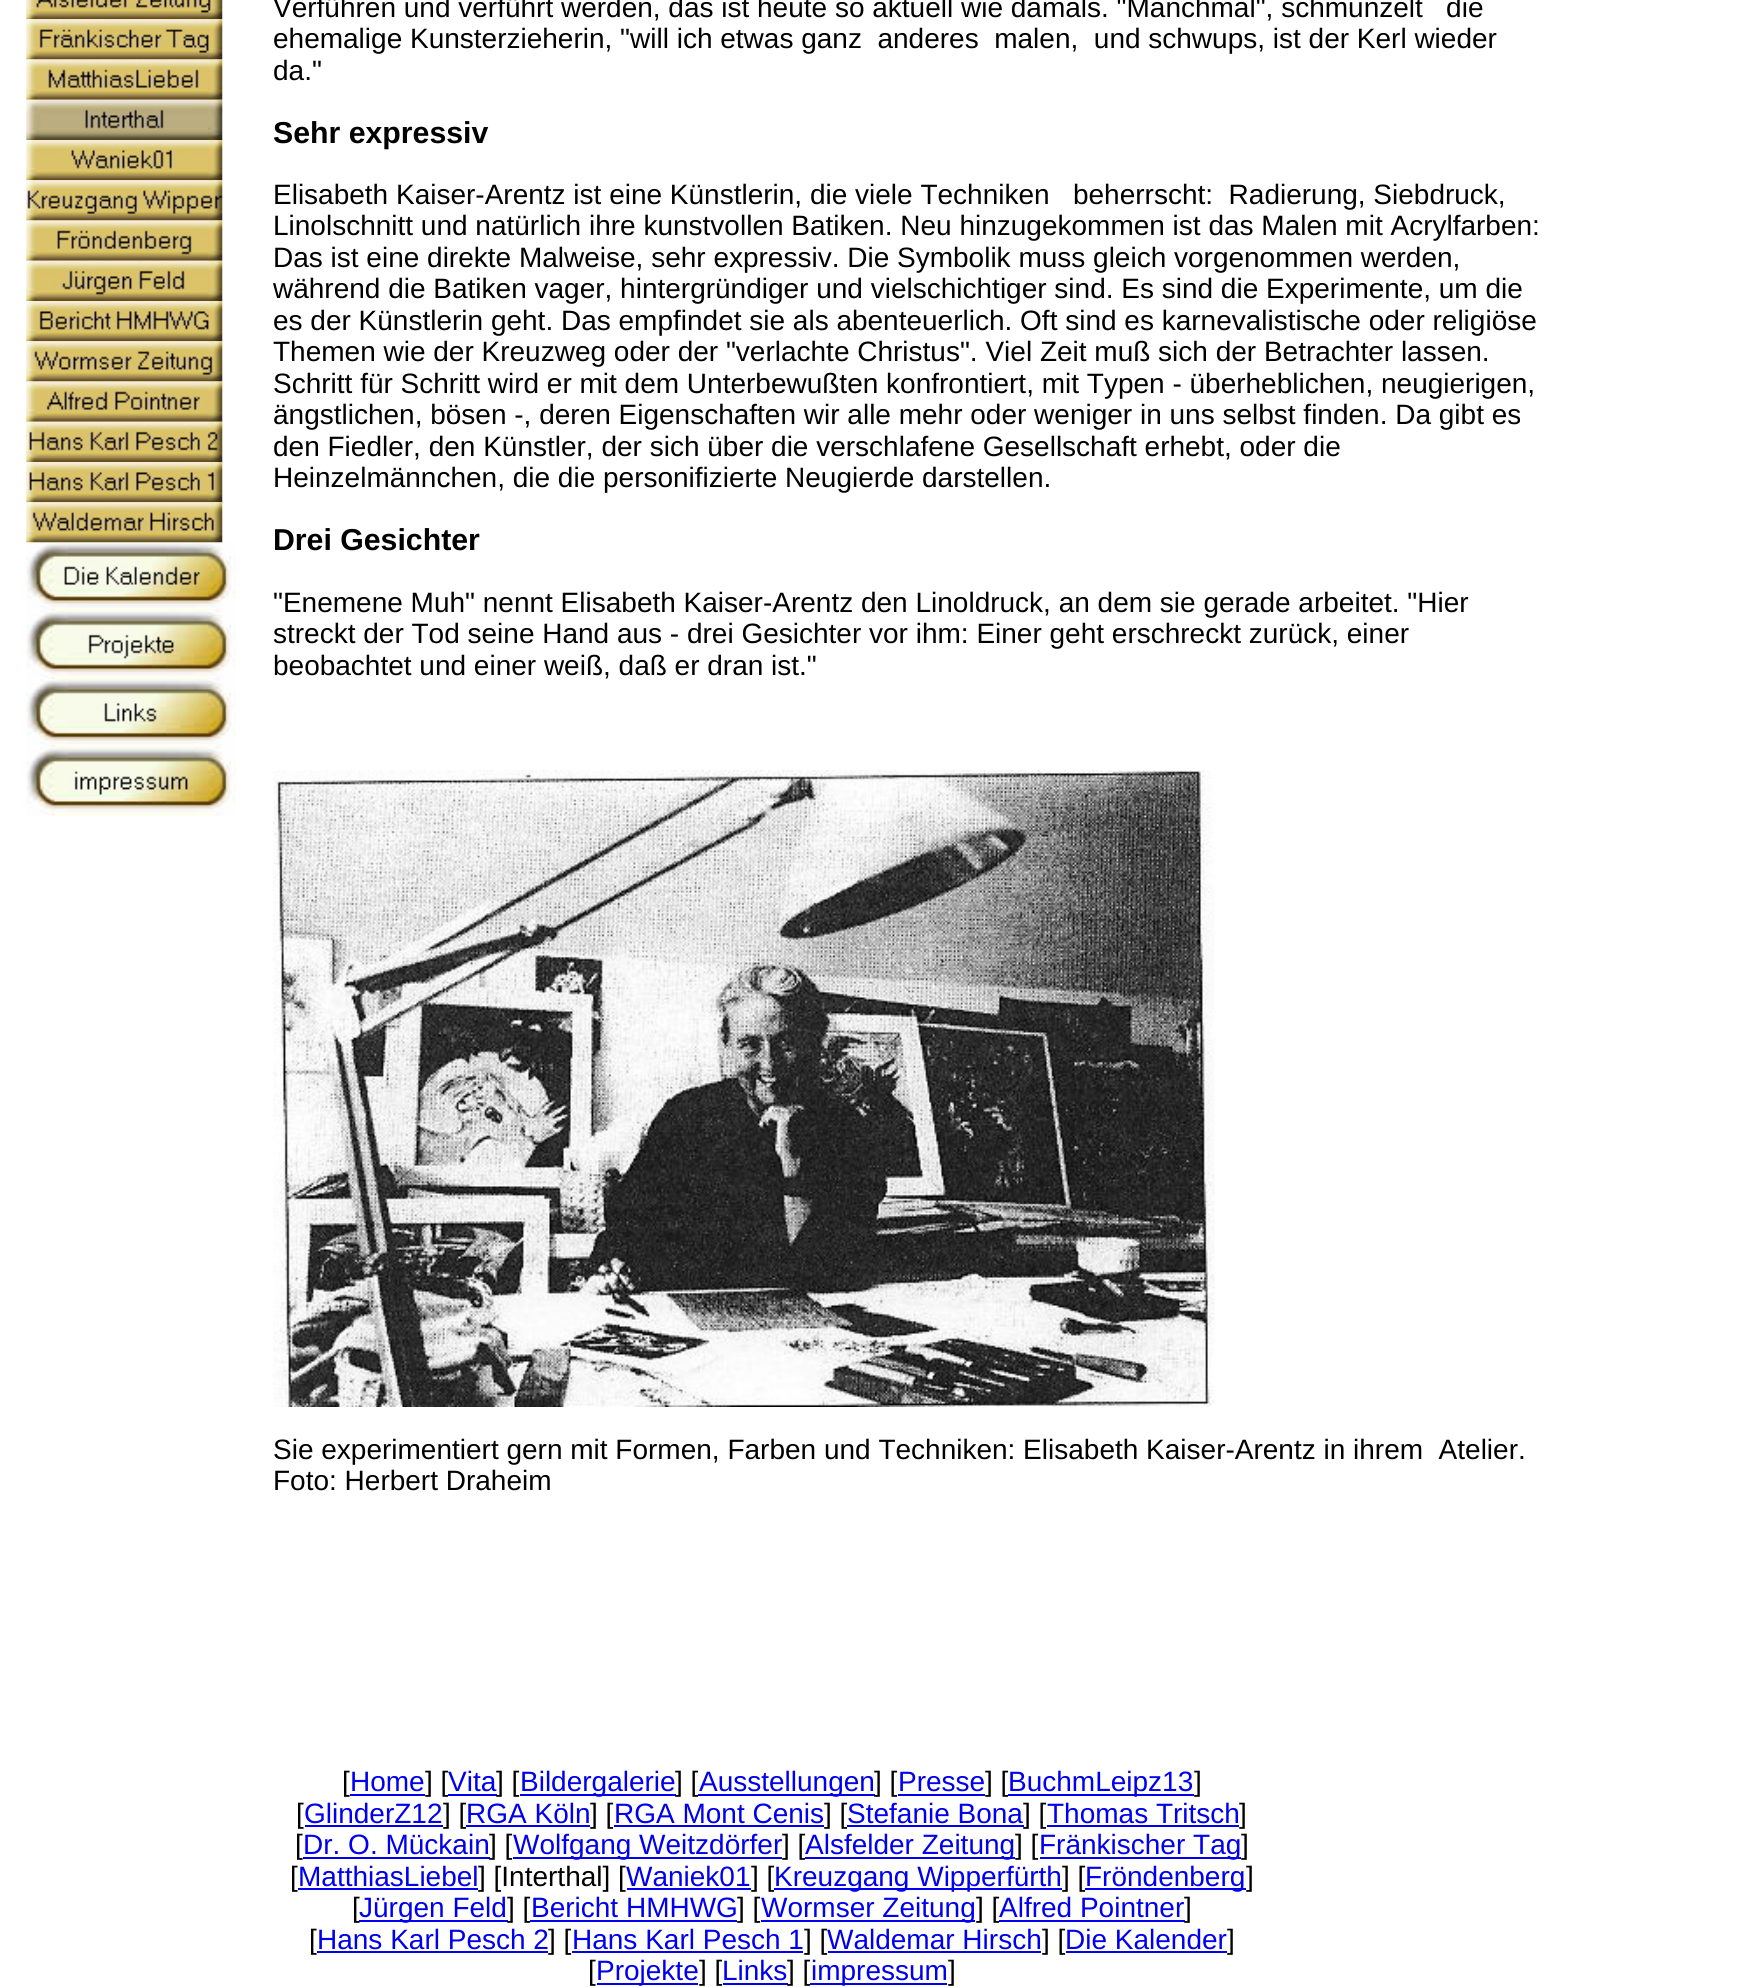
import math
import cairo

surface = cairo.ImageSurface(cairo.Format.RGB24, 1750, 1987)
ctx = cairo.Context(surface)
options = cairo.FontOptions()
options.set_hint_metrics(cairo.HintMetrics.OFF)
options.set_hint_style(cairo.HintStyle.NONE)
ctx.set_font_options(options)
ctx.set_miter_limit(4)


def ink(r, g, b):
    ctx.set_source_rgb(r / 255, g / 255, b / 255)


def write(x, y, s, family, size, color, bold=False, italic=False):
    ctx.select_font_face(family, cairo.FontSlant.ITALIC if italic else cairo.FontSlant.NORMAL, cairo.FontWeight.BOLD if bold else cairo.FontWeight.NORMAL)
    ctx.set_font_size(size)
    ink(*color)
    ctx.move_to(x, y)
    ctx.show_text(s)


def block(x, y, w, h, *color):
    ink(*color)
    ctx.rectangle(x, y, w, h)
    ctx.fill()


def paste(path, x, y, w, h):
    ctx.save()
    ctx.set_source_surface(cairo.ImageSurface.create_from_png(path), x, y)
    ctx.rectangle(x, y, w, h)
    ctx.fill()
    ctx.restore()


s1 = dict(family="Liberation Sans", size=28, color=(0, 0, 0))
s2 = dict(family="Liberation Sans", size=30.25, color=(0, 0, 0), bold=True)
s3 = dict(family="Liberation Sans", size=28, color=(0, 0, 238))

ink(255, 255, 255)
ctx.paint()
paste("pic1.png", 26, 0, 197, 20)
paste("pic2.png", 26, 19, 197, 41)
paste("pic3.png", 26, 59, 197, 41)
paste("pic4.png", 26, 99, 197, 41)
paste("pic5.png", 26, 140, 197, 41)
paste("pic6.png", 26, 180, 197, 41)
paste("pic7.png", 26, 220, 197, 41)
paste("pic8.png", 26, 260, 197, 41)
paste("pic9.png", 26, 301, 197, 41)
paste("pic10.png", 26, 341, 197, 41)
paste("pic11.png", 26, 381, 197, 41)
paste("pic12.png", 26, 421, 197, 41)
paste("pic13.png", 26, 462, 197, 41)
paste("pic14.png", 26, 502, 197, 41)
paste("pic15.png", 26, 542, 210, 69)
paste("pic16.png", 26, 610, 210, 69)
paste("pic17.png", 26, 679, 210, 69)
paste("pic18.png", 26, 747, 210, 69)
write(273, 17, "Verführen und verführt werden, das ist heute so aktuell wie damals. \"Manchmal\", schmunzelt   die", **s1)
write(273, 48, "ehemalige Kunsterzieherin, \"will ich etwas ganz  anderes  malen,  und schwups, ist der Kerl wieder", **s1)
write(273, 80, "da.\"", **s1)
write(273, 143, "Sehr expressiv", **s2)
write(273, 204, "Elisabeth Kaiser-Arentz ist eine Künstlerin, die viele Techniken   beherrscht:  Radierung, Siebdruck,", **s1)
write(273, 235, "Linolschnitt und natürlich ihre kunstvollen Batiken. Neu hinzugekommen ist das Malen mit Acrylfarben:", **s1)
write(273, 267, "Das ist eine direkte Malweise, sehr expressiv. Die Symbolik muss gleich vorgenommen werden,", **s1)
write(273, 298, "während die Batiken vager, hintergründiger und vielschichtiger sind. Es sind die Experimente, um die", **s1)
write(273, 330, "es der Künstlerin geht. Das empfindet sie als abenteuerlich. Oft sind es karnevalistische oder religiöse", **s1)
write(273, 361, "Themen wie der Kreuzweg oder der \"verlachte Christus\". Viel Zeit muß sich der Betrachter lassen.", **s1)
write(273, 393, "Schritt für Schritt wird er mit dem Unterbewußten konfrontiert, mit Typen - überheblichen, neugierigen,", **s1)
write(273, 424, "ängstlichen, bösen -, deren Eigenschaften wir alle mehr oder weniger in uns selbst finden. Da gibt es", **s1)
write(273, 456, "den Fiedler, den Künstler, der sich über die verschlafene Gesellschaft erhebt, oder die", **s1)
write(273, 487, "Heinzelmännchen, die die personifizierte Neugierde darstellen.", **s1)
write(273, 550, "Drei Gesichter", **s2)
write(273, 612, "\"Enemene Muh\" nennt Elisabeth Kaiser-Arentz den Linoldruck, an dem sie gerade arbeitet. \"Hier", **s1)
write(273, 643, "streckt der Tod seine Hand aus - drei Gesichter vor ihm: Einer geht erschreckt zurück, einer", **s1)
write(273, 675, "beobachtet und einer weiß, daß er dran ist.\"", **s1)
paste("pic19.png", 273, 770, 942, 637)
write(273, 1459, "Sie experimentiert gern mit Formen, Farben und Techniken: Elisabeth Kaiser-Arentz in ihrem  Atelier.", **s1)
write(273, 1490, "Foto: Herbert Draheim", **s1)
write(342, 1791, "[", **s1)
write(350, 1791, "Home", **s3)
block(350, 1794, 75, 2, 0, 0, 238)
write(425, 1791, "] [", **s1)
write(448, 1791, "Vita", **s3)
block(448, 1794, 49, 2, 0, 0, 238)
write(496, 1791, "] [", **s1)
block(520, 1794, 156, 2, 0, 0, 238)
write(520, 1791, "Bildergalerie", **s3)
write(675, 1791, "] [", **s1)
block(698, 1794, 177, 2, 0, 0, 238)
write(699, 1791, "Ausstellungen", **s3)
write(874, 1791, "] [", **s1)
write(898, 1791, "Presse", **s3)
block(898, 1794, 87, 2, 0, 0, 238)
write(985, 1791, "] [", **s1)
block(1008, 1794, 186, 2, 0, 0, 238)
write(1008, 1791, "BuchmLeipz13", **s3)
write(1194, 1791, "]", **s1)
write(296, 1823, "[", **s1)
write(304, 1823, "GlinderZ12", **s3)
block(305, 1825, 138, 2, 0, 0, 238)
write(443, 1823, "] [", **s1)
write(466, 1823, "RGA Köln", **s3)
block(466, 1825, 124, 2, 0, 0, 238)
write(590, 1823, "] [", **s1)
write(614, 1823, "RGA Mont Cenis", **s3)
block(614, 1825, 210, 2, 0, 0, 238)
write(824, 1823, "] [", **s1)
write(847, 1823, "Stefanie Bona", **s3)
block(847, 1825, 177, 2, 0, 0, 238)
write(1023, 1823, "] [", **s1)
write(1047, 1823, "Thomas Tritsch", **s3)
block(1047, 1825, 192, 2, 0, 0, 238)
write(1239, 1823, "]", **s1)
write(295, 1854, "[", **s1)
write(303, 1854, "Dr. O. Mückain", **s3)
block(303, 1857, 187, 2, 0, 0, 238)
write(489, 1854, "] [", **s1)
block(513, 1857, 269, 2, 0, 0, 238)
write(513, 1854, "Wolfgang Weitzdörfer", **s3)
write(782, 1854, "] [", **s1)
block(805, 1857, 210, 2, 0, 0, 238)
write(805, 1854, "Alsfelder Zeitung", **s3)
write(1015, 1854, "] [", **s1)
block(1040, 1857, 201, 2, 0, 0, 238)
write(1039, 1854, "Fränkischer Tag", **s3)
write(1241, 1854, "]", **s1)
write(290, 1886, "[", **s1)
write(298, 1886, "MatthiasLiebel", **s3)
block(298, 1888, 180, 2, 0, 0, 238)
write(478, 1886, "] [Interthal] [", **s1)
write(626, 1886, "Waniek01", **s3)
block(627, 1888, 124, 2, 0, 0, 238)
write(751, 1886, "] [", **s1)
block(774, 1888, 288, 2, 0, 0, 238)
write(774, 1886, "Kreuzgang Wipperfürth", **s3)
write(1062, 1886, "] [", **s1)
block(1085, 1888, 161, 2, 0, 0, 238)
write(1085, 1886, "Fröndenberg", **s3)
write(1246, 1886, "]", **s1)
write(352, 1917, "[", **s1)
block(359, 1920, 149, 2, 0, 0, 238)
write(359, 1917, "Jürgen Feld", **s3)
write(507, 1917, "] [", **s1)
write(531, 1917, "Bericht HMHWG", **s3)
block(530, 1920, 207, 2, 0, 0, 238)
write(737, 1917, "] [", **s1)
block(761, 1920, 214, 2, 0, 0, 238)
write(761, 1917, "Wormser Zeitung", **s3)
write(976, 1917, "] [", **s1)
write(999, 1917, "Alfred Pointner", **s3)
block(999, 1920, 186, 2, 0, 0, 238)
write(1184, 1917, "]", **s1)
write(309, 1949, "[", **s1)
write(317, 1949, "Hans Karl Pesch 2", **s3)
block(317, 1951, 231, 2, 0, 0, 238)
write(548, 1949, "] [", **s1)
write(572, 1949, "Hans Karl Pesch 1", **s3)
block(572, 1951, 231, 2, 0, 0, 238)
write(804, 1949, "] [", **s1)
write(827, 1949, "Waldemar Hirsch", **s3)
block(828, 1951, 213, 2, 0, 0, 238)
write(1042, 1949, "] [", **s1)
write(1065, 1949, "Die Kalender", **s3)
block(1066, 1951, 161, 2, 0, 0, 238)
write(1227, 1949, "]", **s1)
write(588, 1980, "[", **s1)
block(597, 1983, 101, 2, 0, 0, 238)
write(596, 1980, "Projekte", **s3)
write(699, 1980, "] [", **s1)
write(722, 1980, "Links", **s3)
block(723, 1983, 65, 2, 0, 0, 238)
write(787, 1980, "] [", **s1)
block(810, 1983, 137, 2, 0, 0, 238)
write(811, 1980, "impressum", **s3)
write(948, 1980, "]", **s1)
surface.write_to_png("screenshot.png")
